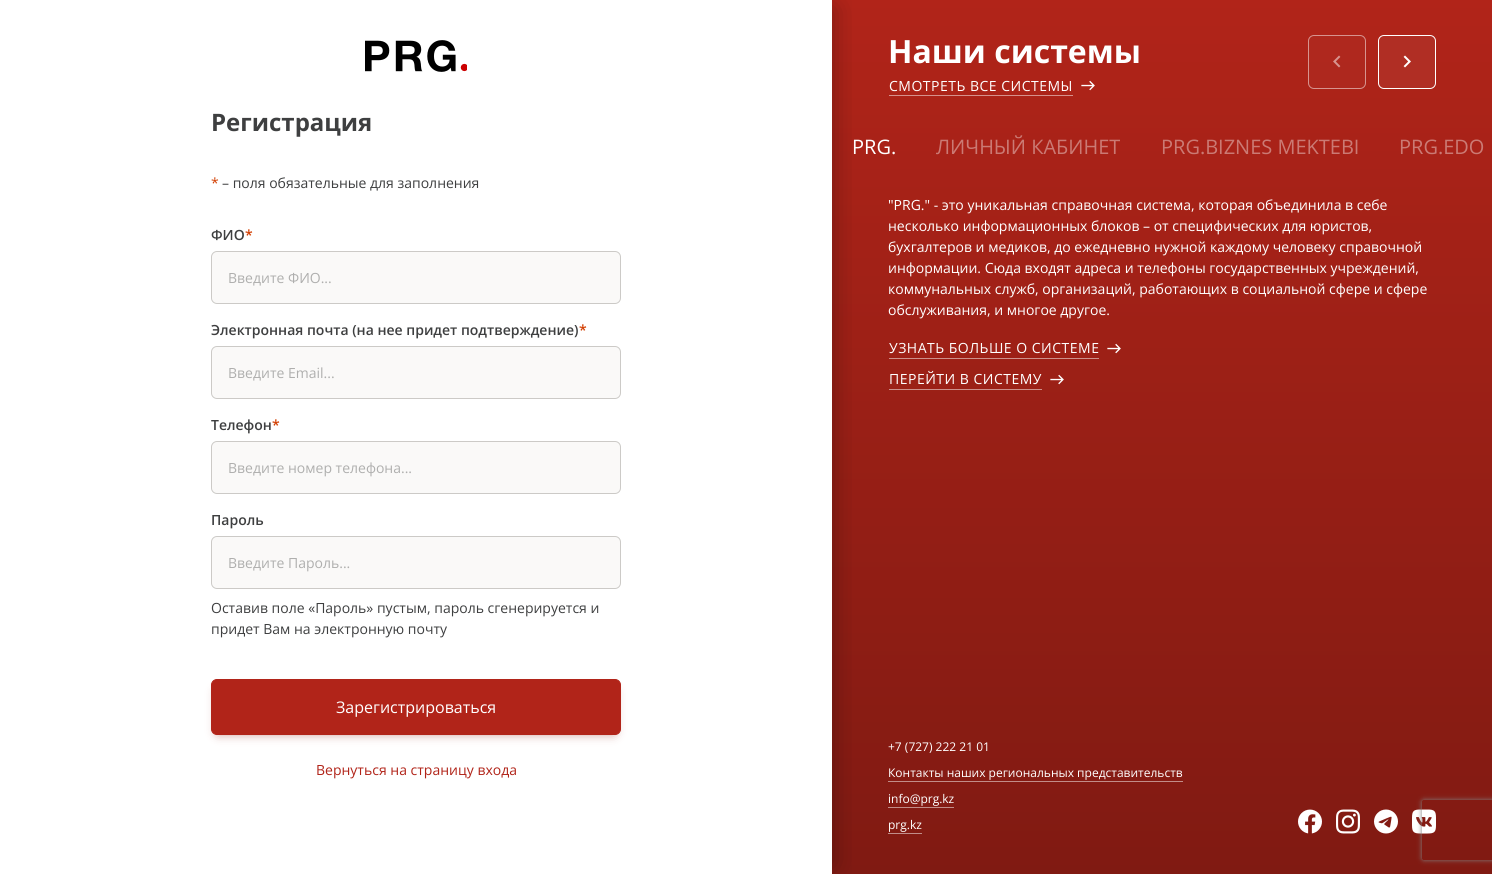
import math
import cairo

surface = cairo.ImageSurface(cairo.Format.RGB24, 1492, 874)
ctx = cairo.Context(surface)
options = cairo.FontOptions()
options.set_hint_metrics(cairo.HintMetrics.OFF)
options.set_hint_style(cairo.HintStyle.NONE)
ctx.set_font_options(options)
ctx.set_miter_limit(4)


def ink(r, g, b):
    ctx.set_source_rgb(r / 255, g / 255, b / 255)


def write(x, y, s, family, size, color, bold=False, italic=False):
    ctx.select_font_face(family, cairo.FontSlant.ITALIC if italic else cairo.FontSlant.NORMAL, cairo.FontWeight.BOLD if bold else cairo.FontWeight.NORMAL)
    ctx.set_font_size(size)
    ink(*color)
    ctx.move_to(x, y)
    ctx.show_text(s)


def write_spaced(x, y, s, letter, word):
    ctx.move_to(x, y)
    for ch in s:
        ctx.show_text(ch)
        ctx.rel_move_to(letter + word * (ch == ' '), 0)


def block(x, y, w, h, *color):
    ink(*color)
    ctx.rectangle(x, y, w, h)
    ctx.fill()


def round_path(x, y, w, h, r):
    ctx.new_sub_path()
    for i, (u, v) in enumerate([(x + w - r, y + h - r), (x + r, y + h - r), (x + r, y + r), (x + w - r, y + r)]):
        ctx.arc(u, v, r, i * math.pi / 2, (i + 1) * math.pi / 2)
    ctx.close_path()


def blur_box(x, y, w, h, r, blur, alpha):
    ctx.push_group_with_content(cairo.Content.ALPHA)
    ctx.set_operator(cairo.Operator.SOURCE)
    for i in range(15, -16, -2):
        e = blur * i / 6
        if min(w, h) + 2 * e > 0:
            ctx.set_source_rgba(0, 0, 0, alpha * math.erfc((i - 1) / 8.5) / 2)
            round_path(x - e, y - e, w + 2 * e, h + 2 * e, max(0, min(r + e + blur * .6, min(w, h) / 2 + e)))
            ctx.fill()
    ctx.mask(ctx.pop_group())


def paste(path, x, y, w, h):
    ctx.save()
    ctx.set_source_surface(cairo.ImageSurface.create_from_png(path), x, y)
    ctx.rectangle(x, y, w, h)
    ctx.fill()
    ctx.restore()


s1 = dict(family="Open Sans", size=24, color=(62, 63, 64), bold=True)
s2 = dict(family="Open Sans", size=14, color=(210, 61, 0))
s3 = dict(family="Open Sans", size=14, color=(62, 63, 64))
s4 = dict(family="Open Sans SemiBold", size=14, color=(62, 63, 64))
s5 = dict(family="Open Sans SemiBold", size=14, color=(210, 61, 0))
s6 = dict(family="Open Sans", size=14, color=(175, 175, 174))
s7 = dict(family="Open Sans", size=16, color=(255, 255, 255))
s8 = dict(family="Open Sans", size=14, color=(177, 36, 25))
s9 = dict(family="Open Sans", size=32, color=(255, 255, 255), bold=True)
s10 = dict(family="Open Sans", size=20, color=(255, 255, 255))
s11 = dict(family="Open Sans", size=20, color=(203, 122, 116))
s12 = dict(family="Open Sans", size=14, color=(255, 255, 255))
s13 = dict(family="Open Sans", size=12, color=(255, 255, 255))

ink(255, 255, 255)
ctx.paint()
gradient = cairo.LinearGradient(1162, 0, 1162, 874)
gradient.add_color_stop_rgba(0, 0.694, 0.141, 0.098, 1)
gradient.add_color_stop_rgba(1, 0.502, 0.102, 0.071, 1)
ctx.set_source(gradient)
ctx.rectangle(832, 0, 660, 874)
ctx.fill()
ctx.save()
ctx.rectangle(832, 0, 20, 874)
ctx.clip()
ink(0, 0, 0)
blur_box(19, 9, 814, 856, 0, 12.5, 0.3)
ctx.restore()
paste("pic1.png", 365, 40, 102, 32)
write(211, 131, "Регистрация", **s1)
write(211, 188, "*", **s2)
write(222, 188, "– поля обязательные для заполнения", **s3)
write(211, 240, "ФИО", **s4)
write(245, 240, "*", **s5)
ink(250, 249, 248)
round_path(211.5, 251.5, 409, 52, 5.5)
ctx.fill_preserve()
ink(204, 202, 199)
ctx.set_line_width(1)
ctx.stroke()
write(228, 283, "Введите ФИО...", **s6)
write(211, 335, "Электронная почта (на нее придет подтверждение)", **s4)
write(579, 335, "*", **s5)
ink(250, 249, 248)
round_path(211.5, 346.5, 409, 52, 5.5)
ctx.fill_preserve()
ink(204, 202, 199)
ctx.stroke()
write(228, 378, "Введите Email...", **s6)
write(211, 430, "Телефон", **s4)
write(272, 430, "*", **s5)
ink(250, 249, 248)
round_path(211.5, 441.5, 409, 52, 5.5)
ctx.fill_preserve()
ink(204, 202, 199)
ctx.stroke()
write(228, 473, "Введите номер телефона...", **s6)
write(211, 525, "Пароль", **s4)
ink(250, 249, 248)
round_path(211.5, 536.5, 409, 52, 5.5)
ctx.fill_preserve()
ink(204, 202, 199)
ctx.stroke()
write(228, 568, "Введите Пароль...", **s6)
write(211, 613, "Оставив поле «Пароль» пустым, пароль сгенерируется и", **s3)
write(211, 634, "придет Вам на электронную почту", **s3)
ink(150, 31, 21)
blur_box(218, 691, 396, 42, 0, 5.5, 0.6)
ink(177, 36, 25)
round_path(211.5, 679.5, 409, 55, 5.5)
ctx.fill_preserve()
ctx.stroke()
write(336, 713, "Зарегистрироваться", **s7)
write(316, 775, "Вернуться на страницу входа", **s8)
paste("pic10.png", 1412, 809, 24, 25)
ctx.save()
ctx.set_fill_rule(cairo.FillRule.EVEN_ODD)
ctx.new_path()
ctx.move_to(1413, 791)
ctx.line_to(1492, 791)
ctx.line_to(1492, 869)
ctx.line_to(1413, 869)
ctx.close_path()
ctx.move_to(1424, 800)
ctx.line_to(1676, 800)
ctx.curve_to(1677, 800, 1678, 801, 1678, 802)
ctx.line_to(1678, 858)
ctx.curve_to(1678, 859, 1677, 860, 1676, 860)
ctx.line_to(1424, 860)
ctx.curve_to(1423, 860, 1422, 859, 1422, 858)
ctx.line_to(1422, 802)
ctx.curve_to(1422, 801, 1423, 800, 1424, 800)
ctx.close_path()
ctx.clip()
ink(128, 128, 128)
blur_box(1422, 800, 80, 60, 2, 2.5, 1)
ctx.restore()
write(888, 63, "Наши системы", **s9)
ctx.select_font_face("Open Sans")
ctx.set_font_size(14)
write_spaced(889, 91, "СМОТРЕТЬ ВСЕ СИСТЕМЫ", 0.5, 0)
paste("pic2.png", 1081, 80, 14, 11)
block(889, 95, 184, 1, 214, 145, 140)
ctx.set_source_rgba(0.69, 0.18, 0.141, 0.5)
round_path(1308.5, 35.5, 57, 53, 5.5)
ctx.fill_preserve()
ink(215, 148, 143)
ctx.stroke()
paste("pic3.png", 1333, 55, 8, 13)
ink(176, 46, 36)
round_path(1378.5, 35.5, 57, 53, 5.5)
ctx.fill_preserve()
ink(255, 255, 255)
ctx.stroke()
paste("pic4.png", 1403, 55, 8, 13)
write(852, 154, "PRG.", **s10)
write(936, 154, "ЛИЧНЫЙ КАБИНЕТ", **s11)
write(1161, 154, "PRG.BIZNES MEKTEBI", **s11)
write(1399, 154, "PRG.EDO", **s11)
write(888, 210, "\"PRG.\" - это уникальная справочная система, которая объединила в себе", **s12)
write(888, 231, "несколько информационных блоков – от специфических для юристов,", **s12)
write(888, 252, "бухгалтеров и медиков, до ежедневно нужной каждому человеку справочной", **s12)
write(888, 273, "информации. Сюда входят адреса и телефоны государственных учреждений,", **s12)
write(888, 294, "коммунальных служб, организаций, работающих в социальной сфере и сфере", **s12)
write(888, 315, "обслуживания, и многое другое.", **s12)
write_spaced(889, 353, "УЗНАТЬ БОЛЬШЕ О СИСТЕМЕ", 0.5, 0)
paste("pic5.png", 1107, 343, 14, 11)
block(889, 358, 210, 1, 206, 144, 139)
ink(255, 255, 255)
write_spaced(889, 384, "ПЕРЕЙТИ В СИСТЕМУ", 0.5, 0)
paste("pic6.png", 1050, 374, 14, 11)
block(889, 389, 153, 1, 205, 144, 139)
write(888, 751, "+7 (727) 222 21 01", **s13)
write(888, 777, "Контакты наших региональных представительств", **s13)
block(888, 781, 295, 1, 194, 141, 137)
write(888, 803, "info@prg.kz", **s13)
block(888, 807, 66, 1, 194, 141, 137)
write(888, 829, "prg.kz", **s13)
block(888, 833, 34, 1, 193, 141, 137)
paste("pic7.png", 1298, 809, 24, 25)
paste("pic8.png", 1336, 809, 24, 25)
paste("pic9.png", 1374, 809, 24, 25)
surface.write_to_png("screenshot.png")
